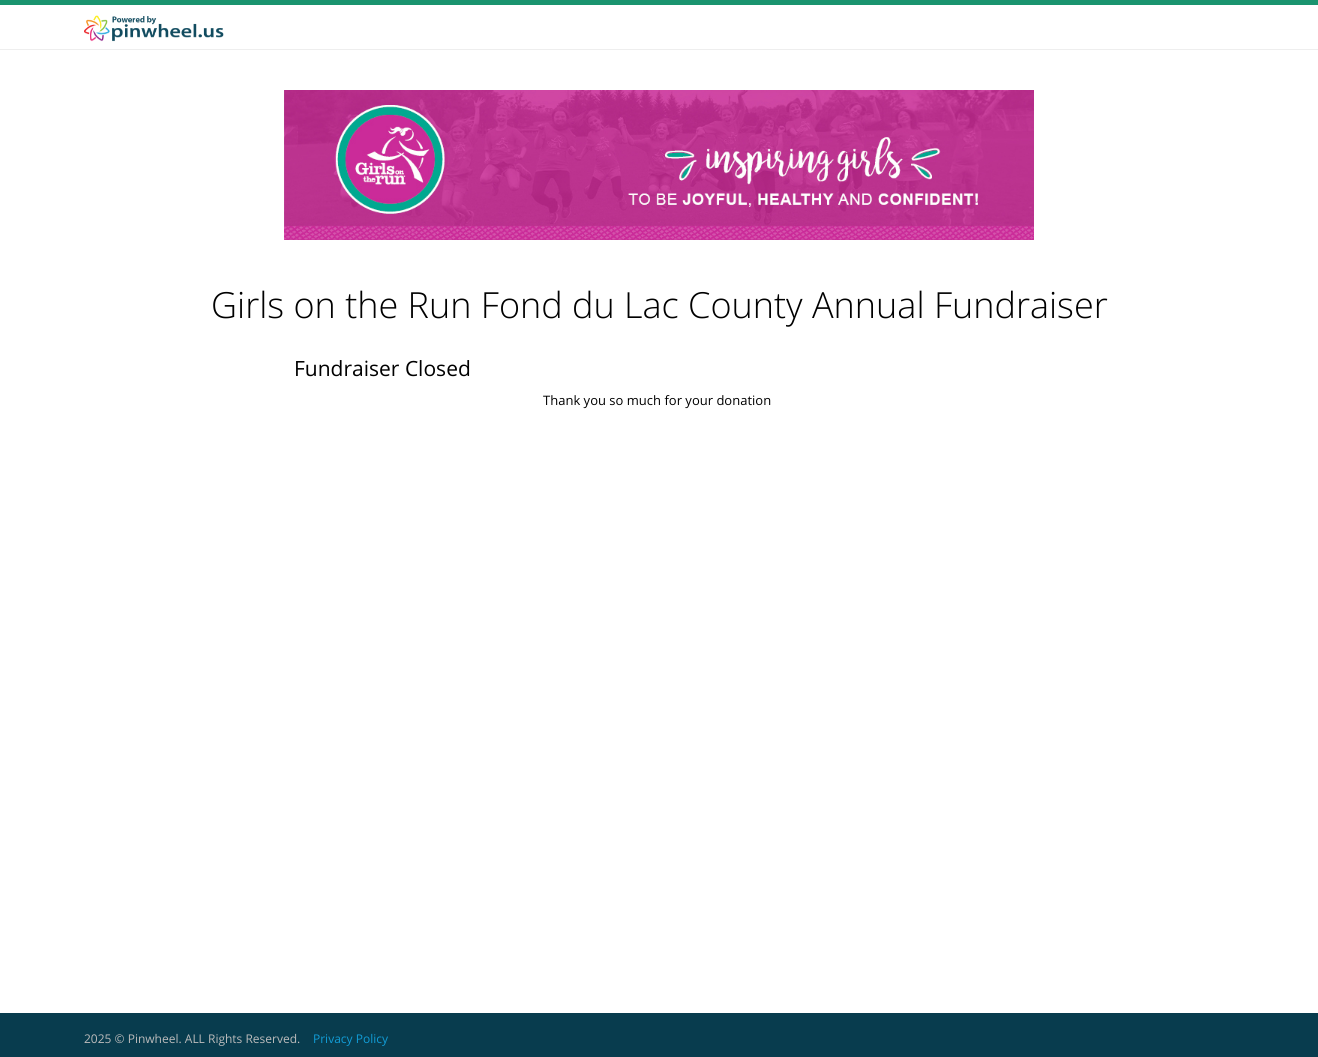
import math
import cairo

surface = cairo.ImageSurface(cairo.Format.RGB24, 1318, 1057)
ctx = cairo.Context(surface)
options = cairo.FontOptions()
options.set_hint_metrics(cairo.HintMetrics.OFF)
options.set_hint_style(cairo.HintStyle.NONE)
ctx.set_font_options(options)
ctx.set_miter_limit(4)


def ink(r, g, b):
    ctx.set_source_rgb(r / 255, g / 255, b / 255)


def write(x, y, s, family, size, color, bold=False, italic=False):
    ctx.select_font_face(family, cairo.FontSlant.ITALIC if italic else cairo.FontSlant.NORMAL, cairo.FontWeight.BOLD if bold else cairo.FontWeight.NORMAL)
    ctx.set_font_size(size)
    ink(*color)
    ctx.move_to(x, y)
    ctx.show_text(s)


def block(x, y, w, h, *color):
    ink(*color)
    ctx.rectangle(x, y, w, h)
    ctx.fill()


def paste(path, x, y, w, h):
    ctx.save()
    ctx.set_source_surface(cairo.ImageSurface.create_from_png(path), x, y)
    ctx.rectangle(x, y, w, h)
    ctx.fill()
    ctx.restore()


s1 = dict(family="Open Sans Light", size=36, color=(0, 0, 0))
s2 = dict(family="Open Sans", size=21, color=(0, 0, 0))
s3 = dict(family="Open Sans", size=13, color=(0, 0, 0))
s4 = dict(family="Open Sans", size=12, color=(187, 187, 187))
s5 = dict(family="Open Sans", size=12, color=(17, 156, 214))

ink(255, 255, 255)
ctx.paint()
block(0, 0, 1318, 5, 26, 148, 111)
block(0, 49, 1318, 1, 238, 238, 238)
paste("pic1.png", 84, 15, 140, 27)
paste("pic2.png", 284, 90, 750, 150)
write(211, 318, "Girls on the Run Fond du Lac County Annual Fundraiser", **s1)
write(294, 376, "Fundraiser Closed", **s2)
write(543, 405, "Thank you so much for your donation", **s3)
block(0, 1013, 1318, 44, 8, 60, 78)
write(84, 1043, "2025 © Pinwheel. ALL Rights Reserved.", **s4)
write(313, 1043, "Privacy Policy", **s5)
surface.write_to_png("screenshot.png")
